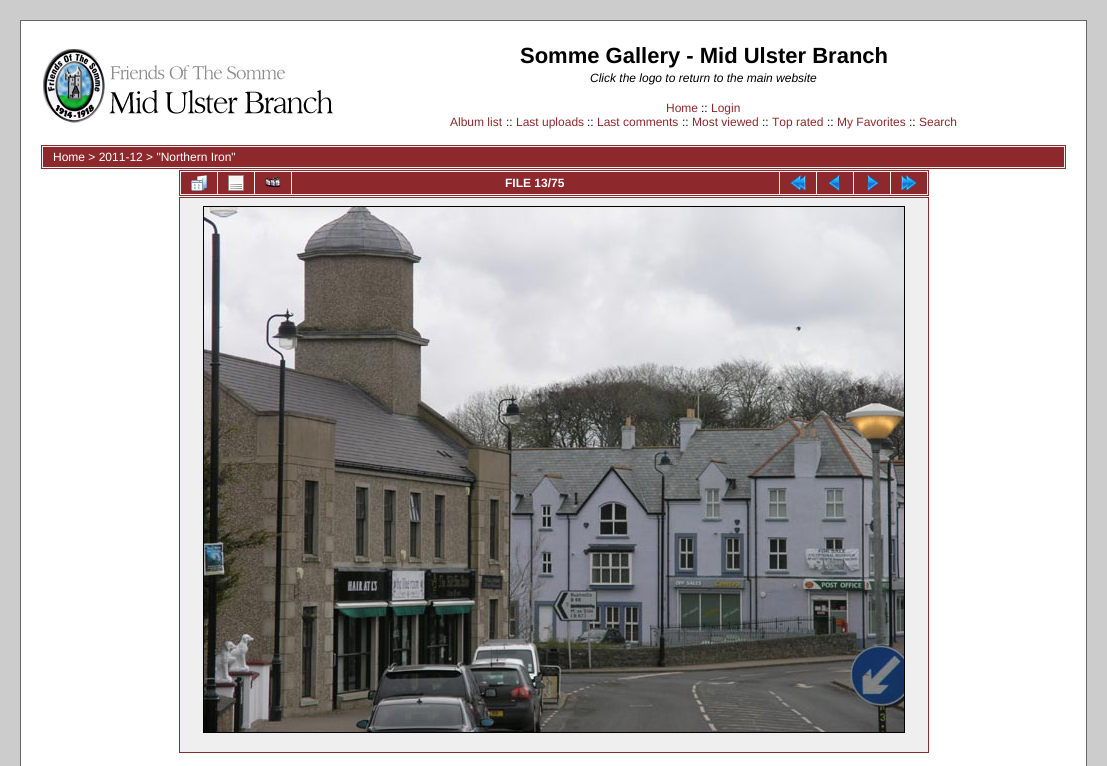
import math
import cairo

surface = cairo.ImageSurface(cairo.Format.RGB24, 1107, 766)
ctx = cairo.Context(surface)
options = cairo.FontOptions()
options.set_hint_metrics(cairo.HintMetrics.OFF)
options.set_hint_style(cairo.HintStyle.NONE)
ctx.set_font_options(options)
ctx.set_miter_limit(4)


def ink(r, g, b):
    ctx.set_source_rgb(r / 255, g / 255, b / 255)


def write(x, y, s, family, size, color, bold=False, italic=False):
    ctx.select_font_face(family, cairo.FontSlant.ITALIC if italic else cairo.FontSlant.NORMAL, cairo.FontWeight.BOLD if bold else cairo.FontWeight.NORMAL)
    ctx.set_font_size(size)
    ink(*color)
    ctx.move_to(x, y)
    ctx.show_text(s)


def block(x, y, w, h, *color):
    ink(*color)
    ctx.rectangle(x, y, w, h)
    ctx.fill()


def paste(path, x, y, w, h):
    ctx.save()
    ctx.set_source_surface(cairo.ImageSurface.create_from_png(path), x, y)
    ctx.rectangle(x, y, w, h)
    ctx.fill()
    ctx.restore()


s1 = dict(family="Liberation Sans", size=22, color=(0, 0, 0), bold=True)
s2 = dict(family="Liberation Sans", size=12, color=(0, 0, 0), italic=True)
s3 = dict(family="Liberation Sans", size=12, color=(141, 41, 45))
s4 = dict(family="Liberation Sans", size=12, color=(0, 0, 0))
s5 = dict(family="Liberation Sans", size=12, color=(255, 255, 255))
s6 = dict(family="Liberation Sans", size=12, color=(255, 255, 255), bold=True)

ink(204, 204, 204)
ctx.paint()
ink(255, 255, 255)
ctx.rectangle(20.5, 20.5, 1066, 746)
ctx.fill_preserve()
ink(102, 102, 102)
ctx.set_line_width(1)
ctx.stroke()
paste("pic1.png", 43, 49, 293, 74)
write(520, 63, "Somme Gallery - Mid Ulster Branch", **s1)
write(590, 82, "Click the logo to return to the main website", **s2)
write(666, 112, "Home", **s3)
write(701, 112, "::", **s4)
write(711, 112, "Login", **s3)
write(450, 126, "Album list", **s3)
write(506, 126, "::", **s4)
write(516, 126, "Last uploads", **s3)
write(587, 126, "::", **s4)
write(597, 126, "Last comments", **s3)
write(682, 126, "::", **s4)
write(692, 126, "Most viewed", **s3)
write(762, 126, "::", **s4)
write(772, 126, "Top rated", **s3)
write(827, 126, "::", **s4)
write(837, 126, "My Favorites", **s3)
write(909, 126, "::", **s4)
write(919, 126, "Search", **s3)
ink(239, 239, 239)
ctx.rectangle(41.5, 145.5, 1024, 23)
ctx.fill_preserve()
ink(141, 41, 45)
ctx.stroke()
block(43, 147, 1021, 20, 141, 41, 45)
write(53, 161, "Home > 2011-12 > \"Northern Iron\"", **s5)
ink(239, 239, 239)
ctx.rectangle(179.5, 170.5, 749, 25)
ctx.fill_preserve()
ink(141, 41, 45)
ctx.stroke()
block(181, 172, 36, 22, 141, 41, 45)
paste("pic2.png", 191, 175, 16, 16)
block(218, 172, 36, 22, 141, 41, 45)
paste("pic3.png", 228, 175, 16, 16)
block(255, 172, 36, 22, 141, 41, 45)
paste("pic4.png", 265, 176, 16, 12)
block(292, 172, 487, 22, 141, 41, 45)
write(505, 187, "FILE 13/75", **s6)
block(780, 172, 36, 22, 141, 41, 45)
paste("pic5.png", 790, 175, 16, 16)
block(817, 172, 36, 22, 141, 41, 45)
paste("pic6.png", 828, 175, 12, 16)
block(854, 172, 36, 22, 141, 41, 45)
paste("pic7.png", 867, 175, 12, 16)
block(891, 172, 36, 22, 141, 41, 45)
paste("pic8.png", 901, 175, 16, 16)
ink(239, 239, 239)
ctx.rectangle(179.5, 197.5, 749, 555)
ctx.fill_preserve()
ink(141, 41, 45)
ctx.stroke()
ctx.rectangle(203.5, 206.5, 701, 526)
ink(0, 0, 0)
ctx.stroke()
paste("pic9.png", 204, 207, 700, 525)
surface.write_to_png("screenshot.png")
